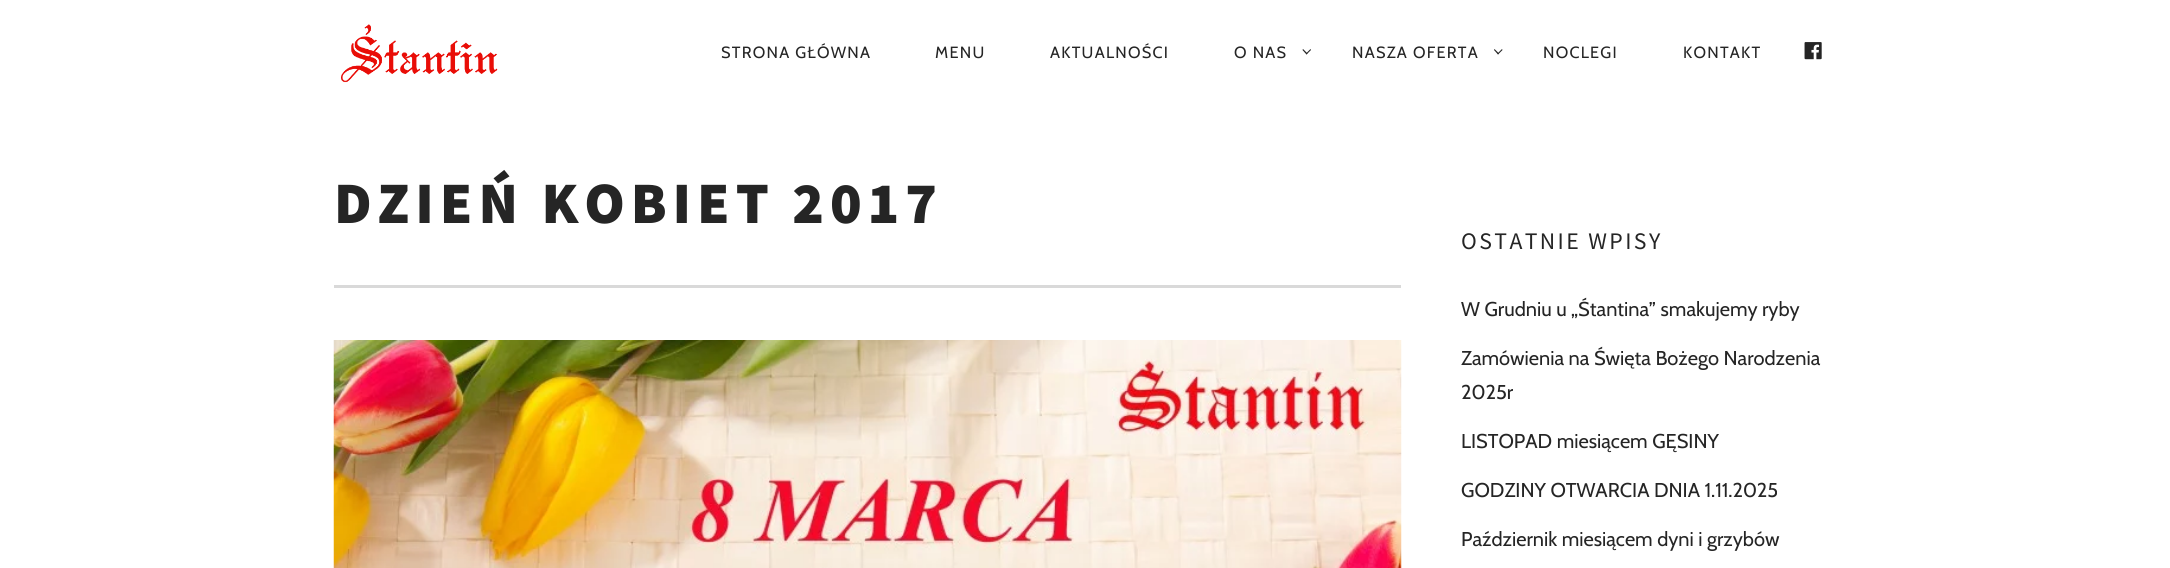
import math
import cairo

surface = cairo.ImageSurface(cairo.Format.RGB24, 2170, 568)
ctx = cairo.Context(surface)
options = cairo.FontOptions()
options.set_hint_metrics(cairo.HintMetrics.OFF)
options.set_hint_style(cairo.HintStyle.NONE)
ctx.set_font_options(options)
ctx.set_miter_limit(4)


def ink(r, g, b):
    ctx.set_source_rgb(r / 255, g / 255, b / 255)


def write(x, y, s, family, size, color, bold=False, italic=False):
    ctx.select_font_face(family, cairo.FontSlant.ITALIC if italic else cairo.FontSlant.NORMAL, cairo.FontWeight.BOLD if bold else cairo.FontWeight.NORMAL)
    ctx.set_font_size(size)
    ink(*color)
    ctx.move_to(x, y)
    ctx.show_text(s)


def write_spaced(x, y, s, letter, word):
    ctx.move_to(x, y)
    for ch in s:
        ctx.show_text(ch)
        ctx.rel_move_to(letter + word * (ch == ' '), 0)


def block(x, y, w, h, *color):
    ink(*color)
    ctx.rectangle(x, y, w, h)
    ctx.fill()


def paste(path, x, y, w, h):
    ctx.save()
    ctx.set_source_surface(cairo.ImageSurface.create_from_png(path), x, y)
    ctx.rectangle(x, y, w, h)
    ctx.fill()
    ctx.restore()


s1 = dict(family="Cabin", size=20, color=(37, 37, 37))

ink(255, 255, 255)
ctx.paint()
paste("pic1.png", 341, 24, 157, 59)
ctx.select_font_face("Cabin")
ctx.set_font_size(16.25)
ink(37, 37, 37)
write_spaced(721, 58, "STRONA GŁÓWNA", 1.25, 0)
write_spaced(935, 58, "MENU", 1.25, 0)
write_spaced(1050, 58, "AKTUALNOŚCI", 1.25, 0)
write_spaced(1234, 58, "O NAS", 1.25, 0)
ctx.new_path()
ctx.move_to(1310.5, 49)
ctx.line_to(1311, 50)
ctx.line_to(1306.5, 54.5)
ctx.line_to(1306, 53.5)
ctx.close_path()
ctx.fill()
ctx.new_path()
ctx.move_to(1303, 49)
ctx.line_to(1307.5, 53.5)
ctx.line_to(1306.5, 54.5)
ctx.line_to(1302.5, 50)
ctx.close_path()
ctx.fill()
write_spaced(1352, 58, "NASZA OFERTA", 1.25, 0)
ctx.new_path()
ctx.move_to(1502, 49)
ctx.line_to(1502.5, 50)
ctx.line_to(1498, 54.5)
ctx.line_to(1497.5, 53.5)
ctx.close_path()
ctx.fill()
ctx.new_path()
ctx.move_to(1494.5, 49)
ctx.line_to(1499, 53.5)
ctx.line_to(1498, 54.5)
ctx.line_to(1494, 50)
ctx.close_path()
ctx.fill()
write_spaced(1543, 58, "NOCLEGI", 1.25, 0)
write_spaced(1683, 58, "KONTAKT", 1.25, 0)
paste("pic2.png", 1804, 42, 18, 18)
ctx.select_font_face("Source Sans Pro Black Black")
ctx.set_font_size(58.75)
write_spaced(334, 223, "DZIEŃ KOBIET 2017", 5.9, 0)
block(334, 285, 1067, 3, 217, 217, 217)
paste("pic3.png", 333, 340, 1069, 228)
ctx.select_font_face("Source Sans Pro")
ctx.set_font_size(23.75)
ink(37, 37, 37)
write_spaced(1461, 249, "OSTATNIE WPISY", 2.4, 0)
write(1461, 316, "W Grudniu u „Śtantina” smakujemy ryby", **s1)
write(1461, 365, "Zamówienia na Święta Bożego Narodzenia", **s1)
write(1461, 399, "2025r", **s1)
write(1461, 448, "LISTOPAD miesiącem GĘSINY", **s1)
write(1461, 497, "GODZINY OTWARCIA DNIA 1.11.2025", **s1)
write(1461, 546, "Październik miesiącem dyni i grzybów", **s1)
surface.write_to_png("screenshot.png")
